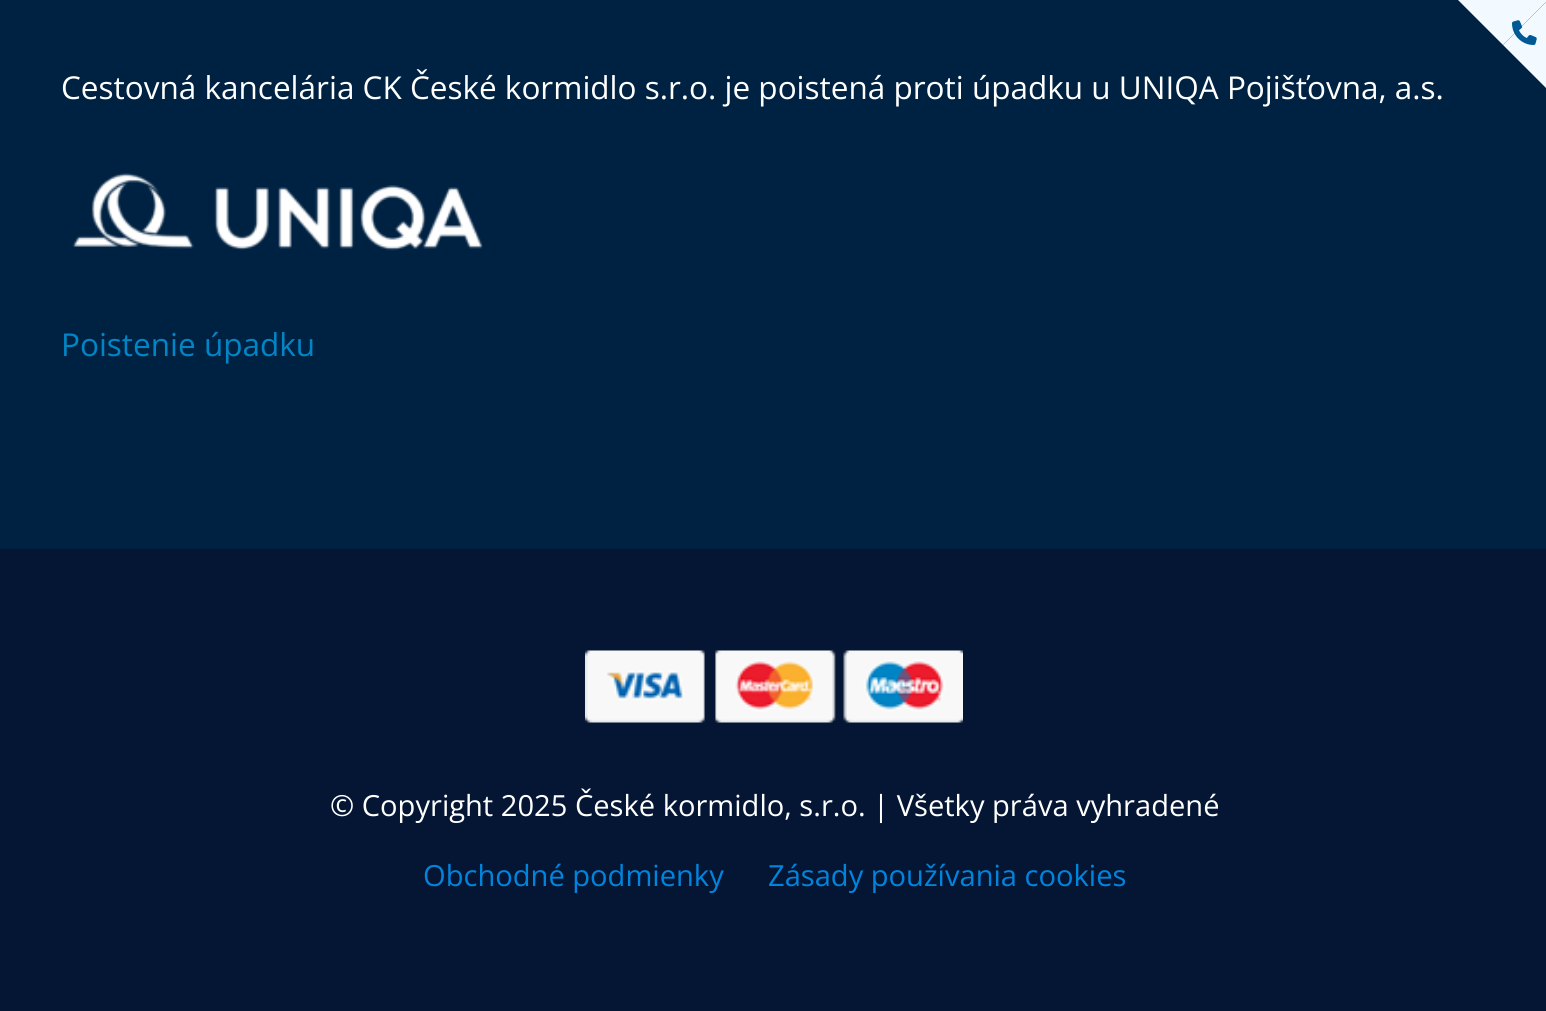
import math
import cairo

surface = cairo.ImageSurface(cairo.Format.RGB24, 1546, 1011)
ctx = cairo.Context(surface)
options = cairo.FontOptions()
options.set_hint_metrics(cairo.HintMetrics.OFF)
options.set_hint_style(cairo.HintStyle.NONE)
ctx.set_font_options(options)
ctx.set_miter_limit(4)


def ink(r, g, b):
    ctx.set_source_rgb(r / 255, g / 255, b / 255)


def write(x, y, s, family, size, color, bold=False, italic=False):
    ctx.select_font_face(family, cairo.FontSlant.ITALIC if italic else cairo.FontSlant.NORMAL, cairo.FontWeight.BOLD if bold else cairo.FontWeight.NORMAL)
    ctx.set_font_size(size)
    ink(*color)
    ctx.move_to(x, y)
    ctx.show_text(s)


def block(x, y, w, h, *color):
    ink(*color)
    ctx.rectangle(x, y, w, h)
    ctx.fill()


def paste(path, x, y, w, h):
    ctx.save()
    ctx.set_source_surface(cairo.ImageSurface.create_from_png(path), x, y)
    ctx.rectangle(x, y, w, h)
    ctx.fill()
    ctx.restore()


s1 = dict(family="Open Sans", size=31.5, color=(255, 255, 255))
s2 = dict(family="Open Sans", size=31.5, color=(0, 133, 199))
s3 = dict(family="Open Sans", size=29.1, color=(255, 255, 255))
s4 = dict(family="Open Sans", size=29.1, color=(0, 133, 223))

ink(0, 34, 66)
ctx.paint()
ink(242, 250, 255)
ctx.new_path()
ctx.move_to(1458, 0)
ctx.line_to(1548, 0)
ctx.line_to(1503, 45)
ctx.close_path()
ctx.fill()
ctx.new_path()
ctx.move_to(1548, 0)
ctx.line_to(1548, 90)
ctx.line_to(1503, 45)
ctx.close_path()
ctx.fill()
paste("pic1.png", 1512, 20, 25, 25)
write(61, 99, "Cestovná kancelária CK České kormidlo s.r.o. je poistená proti úpadku u UNIQA Pojišťovna, a.s.", **s1)
paste("pic2.png", 72, 173, 411, 78)
write(61, 356, "Poistenie úpadku", **s2)
block(0, 549, 1546, 462, 4, 22, 51)
paste("pic3.png", 585, 650, 378, 73)
write(330, 816, "© Copyright 2025 České kormidlo, s.r.o. | Všetky práva vyhradené", **s3)
write(423, 886, "Obchodné podmienky", **s4)
write(768, 886, "Zásady používania cookies", **s4)
surface.write_to_png("screenshot.png")
